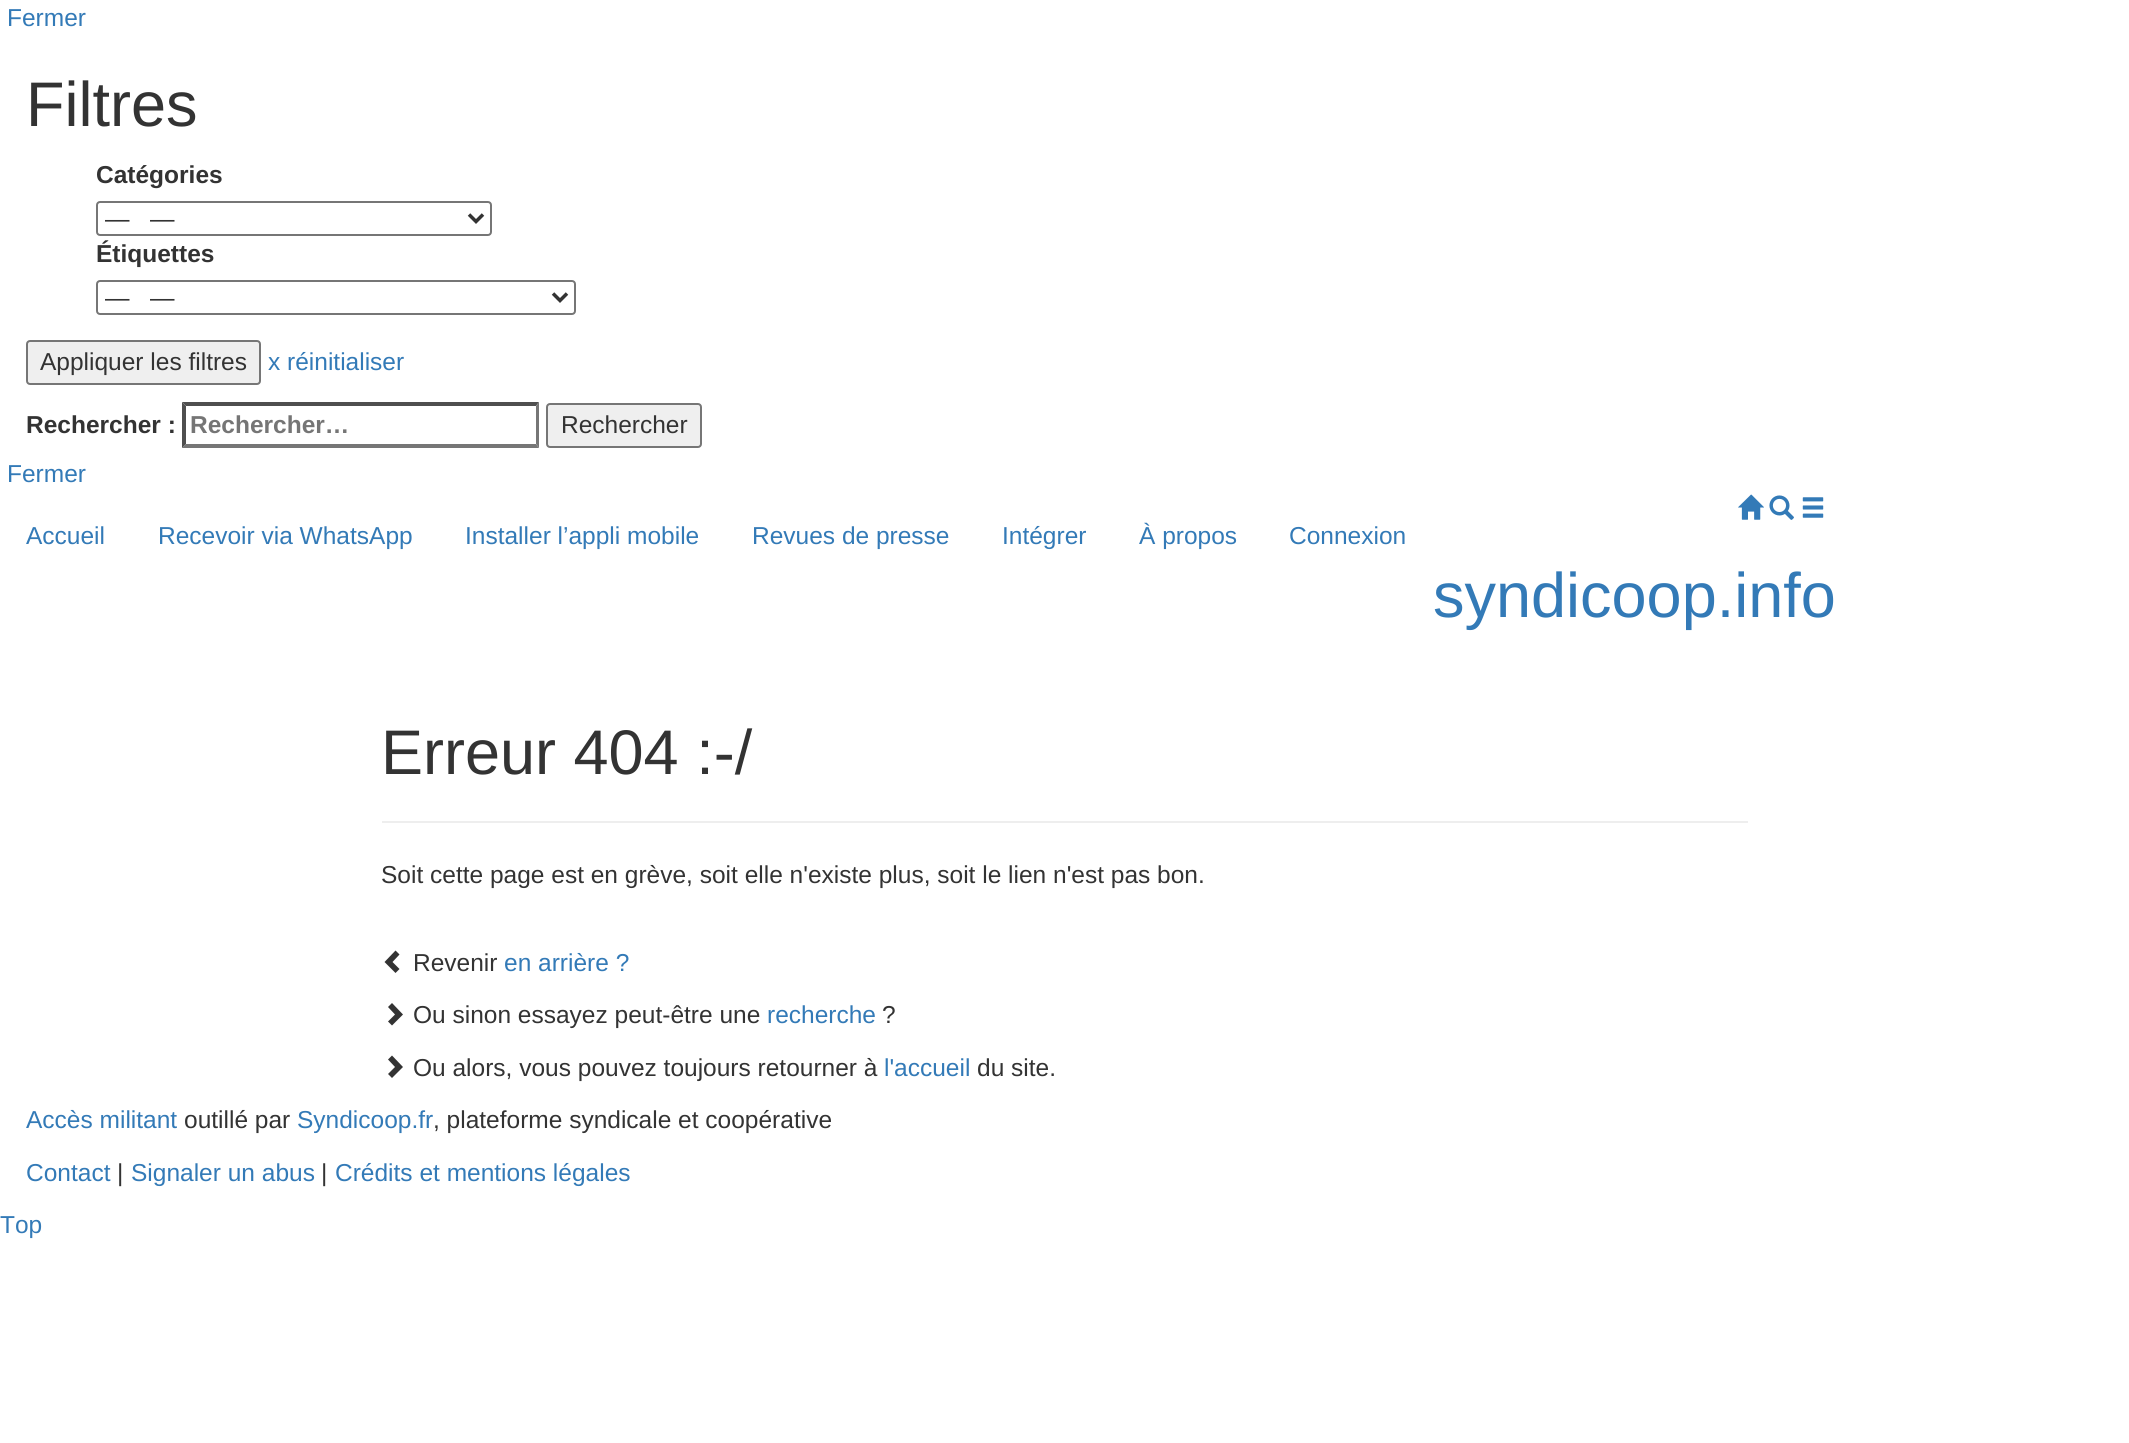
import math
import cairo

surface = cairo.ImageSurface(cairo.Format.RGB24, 2129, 1443)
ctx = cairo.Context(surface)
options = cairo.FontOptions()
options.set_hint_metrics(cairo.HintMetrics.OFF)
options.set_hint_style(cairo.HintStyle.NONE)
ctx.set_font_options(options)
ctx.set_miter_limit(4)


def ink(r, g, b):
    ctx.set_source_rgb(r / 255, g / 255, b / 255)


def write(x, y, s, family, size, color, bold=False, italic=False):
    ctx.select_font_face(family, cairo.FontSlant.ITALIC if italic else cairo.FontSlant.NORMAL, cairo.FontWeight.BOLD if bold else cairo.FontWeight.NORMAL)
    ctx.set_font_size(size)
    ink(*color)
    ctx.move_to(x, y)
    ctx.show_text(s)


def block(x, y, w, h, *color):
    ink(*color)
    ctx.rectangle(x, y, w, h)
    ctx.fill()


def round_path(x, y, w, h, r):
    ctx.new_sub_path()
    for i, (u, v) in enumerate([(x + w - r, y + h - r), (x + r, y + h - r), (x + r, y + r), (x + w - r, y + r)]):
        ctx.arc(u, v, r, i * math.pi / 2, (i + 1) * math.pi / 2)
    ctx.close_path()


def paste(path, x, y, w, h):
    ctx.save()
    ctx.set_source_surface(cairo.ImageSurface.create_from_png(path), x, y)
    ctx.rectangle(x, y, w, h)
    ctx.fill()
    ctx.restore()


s1 = dict(family="Liberation Sans", size=24.5, color=(51, 122, 183))
s2 = dict(family="Liberation Sans", size=63, color=(51, 51, 51))
s3 = dict(family="Liberation Sans", size=24.5, color=(51, 51, 51), bold=True)
s4 = dict(family="Liberation Sans", size=24.5, color=(51, 51, 51))
s5 = dict(family="Liberation Sans", size=24.5, color=(117, 117, 117), bold=True)
s6 = dict(family="Liberation Sans", size=63, color=(51, 122, 183))

ink(255, 255, 255)
ctx.paint()
write(7, 26, "Fermer", **s1)
write(26, 126, "Filtres", **s2)
write(96, 183, "Catégories", **s3)
round_path(97, 202, 394, 33, 3)
ink(118, 118, 118)
ctx.stroke()
ctx.new_path()
ctx.move_to(469, 214.5)
ctx.line_to(476, 221.5)
ctx.line_to(483, 214.5)
ink(51, 51, 51)
ctx.set_line_width(3.5)
ctx.stroke()
write(105, 227, "—   —", **s4)
write(96, 262, "Étiquettes", **s3)
round_path(97, 281, 478, 33, 3)
ink(118, 118, 118)
ctx.set_line_width(2)
ctx.stroke()
ctx.new_path()
ctx.move_to(553, 293.5)
ctx.line_to(560, 300.5)
ctx.line_to(567, 293.5)
ink(51, 51, 51)
ctx.set_line_width(3.5)
ctx.stroke()
write(105, 306, "—   —", **s4)
ink(239, 239, 239)
round_path(27, 341, 233, 43, 3)
ctx.fill_preserve()
ink(118, 118, 118)
ctx.set_line_width(2)
ctx.stroke()
write(40, 370, "Appliquer les filtres", **s4)
write(268, 370, "x réinitialiser", **s1)
write(26, 433, "Rechercher :", **s3)
ink(79, 79, 79)
ctx.new_path()
ctx.move_to(182, 402)
ctx.line_to(539, 402)
ctx.line_to(536, 406)
ctx.line_to(186, 406)
ctx.close_path()
ctx.fill()
ink(118, 118, 118)
ctx.new_path()
ctx.move_to(539, 402)
ctx.line_to(539, 448)
ctx.line_to(536, 444)
ctx.line_to(536, 406)
ctx.close_path()
ctx.fill()
ctx.new_path()
ctx.move_to(539, 448)
ctx.line_to(182, 448)
ctx.line_to(186, 444)
ctx.line_to(536, 444)
ctx.close_path()
ctx.fill()
ink(79, 79, 79)
ctx.new_path()
ctx.move_to(182, 448)
ctx.line_to(182, 402)
ctx.line_to(186, 406)
ctx.line_to(186, 444)
ctx.close_path()
ctx.fill()
write(190, 433, "Rechercher…", **s5)
ink(239, 239, 239)
round_path(547, 404, 154, 43, 3)
ctx.fill_preserve()
ink(118, 118, 118)
ctx.stroke()
write(561, 433, "Rechercher", **s4)
write(7, 482, "Fermer", **s1)
write(26, 544, "Accueil", **s1)
write(158, 544, "Recevoir via WhatsApp", **s1)
write(465, 544, "Installer l’appli mobile", **s1)
write(752, 544, "Revues de presse", **s1)
write(1002, 544, "Intégrer", **s1)
write(1139, 544, "À propos", **s1)
write(1289, 544, "Connexion", **s1)
paste("pic1.png", 1738, 494, 26, 26)
paste("pic2.png", 1769, 495, 25, 25)
paste("pic3.png", 1802, 497, 22, 21)
write(1433, 617, "syndicoop.info", **s6)
block(382, 821, 1366, 2, 238, 238, 238)
write(381, 774, "Erreur 404 :-/", **s2)
write(381, 883, "Soit cette page est en grève, soit elle n'existe plus, soit le lien n'est pas bon.", **s4)
ctx.new_path()
ctx.move_to(399.5, 954.5)
ctx.line_to(392.5, 962)
ctx.line_to(399.5, 969)
ctx.line_to(395.5, 973)
ctx.line_to(384.5, 962)
ctx.line_to(395.5, 950.5)
ctx.close_path()
ctx.fill()
write(413, 971, "Revenir", **s4)
write(504, 971, "en arrière ?", **s1)
ink(51, 51, 51)
ctx.new_path()
ctx.move_to(403, 1014.5)
ctx.line_to(392, 1025.5)
ctx.line_to(388, 1021.5)
ctx.line_to(395, 1014.5)
ctx.line_to(388, 1007)
ctx.line_to(392, 1003)
ctx.close_path()
ctx.fill()
write(413, 1023, "Ou sinon essayez peut-être une", **s4)
write(767, 1023, "recherche", **s1)
write(882, 1023, "?", **s4)
ctx.new_path()
ctx.move_to(403, 1067)
ctx.line_to(392, 1078)
ctx.line_to(388, 1074)
ctx.line_to(395, 1067)
ctx.line_to(388, 1059.5)
ctx.line_to(392, 1055.5)
ctx.close_path()
ctx.fill()
write(413, 1076, "Ou alors, vous pouvez toujours retourner à", **s4)
write(884, 1076, "l'accueil", **s1)
write(977, 1076, "du site.", **s4)
write(26, 1128, "Accès militant", **s1)
write(184, 1128, "outillé par", **s4)
write(297, 1128, "Syndicoop.fr", **s1)
write(433, 1128, ", plateforme syndicale et coopérative", **s4)
write(26, 1181, "Contact", **s1)
write(117, 1181, "|", **s4)
write(131, 1181, "Signaler un abus", **s1)
write(321, 1181, "|", **s4)
write(335, 1181, "Crédits et mentions légales", **s1)
write(0, 1233, "Top", **s1)
surface.write_to_png("screenshot.png")
